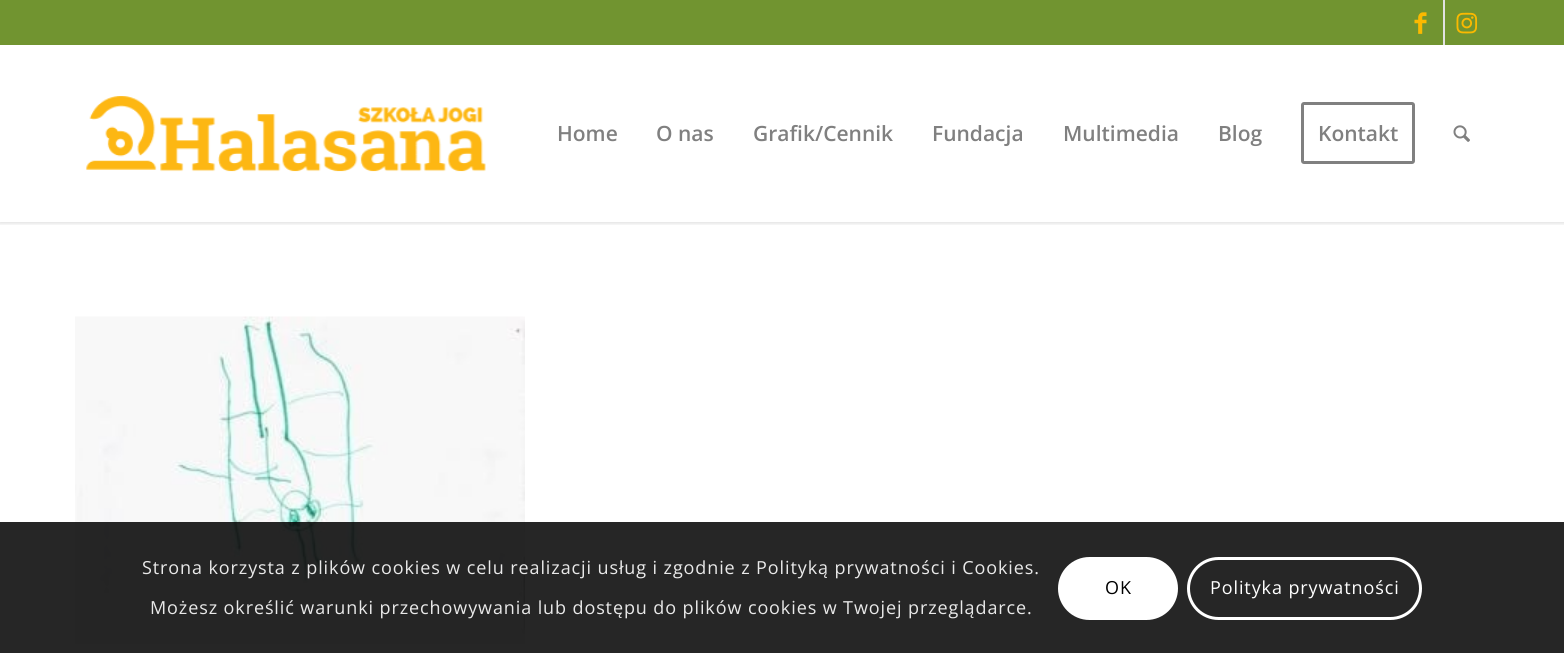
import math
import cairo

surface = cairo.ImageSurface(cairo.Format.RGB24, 1564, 653)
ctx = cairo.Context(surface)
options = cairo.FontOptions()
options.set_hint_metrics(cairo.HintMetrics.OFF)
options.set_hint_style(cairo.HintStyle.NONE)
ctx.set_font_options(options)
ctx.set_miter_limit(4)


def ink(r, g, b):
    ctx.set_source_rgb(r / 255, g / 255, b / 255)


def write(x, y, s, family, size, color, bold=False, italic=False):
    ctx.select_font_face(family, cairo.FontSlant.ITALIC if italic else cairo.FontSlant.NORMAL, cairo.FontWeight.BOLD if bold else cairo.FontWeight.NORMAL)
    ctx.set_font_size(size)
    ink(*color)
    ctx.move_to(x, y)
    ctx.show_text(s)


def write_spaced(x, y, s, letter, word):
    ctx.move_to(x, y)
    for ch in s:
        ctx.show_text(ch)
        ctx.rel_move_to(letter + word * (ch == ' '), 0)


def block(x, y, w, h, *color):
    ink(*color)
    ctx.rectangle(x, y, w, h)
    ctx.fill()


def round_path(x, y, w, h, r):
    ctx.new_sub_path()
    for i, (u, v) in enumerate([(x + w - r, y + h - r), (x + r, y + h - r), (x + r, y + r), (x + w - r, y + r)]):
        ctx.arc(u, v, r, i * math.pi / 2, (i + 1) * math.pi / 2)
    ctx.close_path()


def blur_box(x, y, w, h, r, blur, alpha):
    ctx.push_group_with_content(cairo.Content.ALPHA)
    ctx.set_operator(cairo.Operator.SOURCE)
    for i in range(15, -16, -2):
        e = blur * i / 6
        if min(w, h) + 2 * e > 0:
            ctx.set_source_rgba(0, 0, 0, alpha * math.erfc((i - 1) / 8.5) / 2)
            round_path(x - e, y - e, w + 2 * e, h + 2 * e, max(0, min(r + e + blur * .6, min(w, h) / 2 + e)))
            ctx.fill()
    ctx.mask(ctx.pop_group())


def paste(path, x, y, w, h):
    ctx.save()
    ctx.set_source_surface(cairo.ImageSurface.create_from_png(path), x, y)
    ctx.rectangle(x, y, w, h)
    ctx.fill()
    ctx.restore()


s1 = dict(family="Open Sans SemiBold", size=21, color=(128, 128, 128))

ink(255, 255, 255)
ctx.paint()
ctx.save()
ctx.rectangle(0, 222, 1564, 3)
ctx.clip()
ink(0, 0, 0)
blur_box(-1, -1, 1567, 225, 0, 1.5, 0.1)
ctx.restore()
block(0, 0, 1564, 45, 113, 148, 48)
block(1443, 0, 2, 45, 225, 225, 225)
paste("pic1.png", 1414, 12, 13, 22)
paste("pic2.png", 1456, 12, 22, 22)
paste("pic3.png", 86, 96, 400, 76)
write(557, 141, "Home", **s1)
write(656, 141, "O nas", **s1)
write(753, 141, "Grafik/Cennik", **s1)
write(932, 141, "Fundacja", **s1)
write(1063, 141, "Multimedia", **s1)
write(1218, 141, "Blog", **s1)
round_path(1302.5, 103.5, 111, 59, 1.5)
ctx.set_line_width(3)
ctx.stroke()
write(1318, 141, "Kontakt", **s1)
paste("pic4.png", 1453, 125, 17, 17)
paste("pic5.png", 75, 316, 450, 328)
ctx.set_source_rgba(0, 0, 0, 0.85)
ctx.rectangle(0, 522, 1564, 131)
ctx.fill()
ctx.select_font_face("Open Sans")
ctx.set_font_size(18)
ink(233, 233, 233)
write_spaced(142, 574, "Strona korzysta z plików cookies w celu realizacji usług i zgodnie z Polityką prywatności i Cookies.", 0.9, 0)
write_spaced(150, 614, "Możesz określić warunki przechowywania lub dostępu do plików cookies w Twojej przeglądarce.", 0.9, 0)
ink(255, 255, 255)
round_path(1058, 557, 120, 63, 31.5)
ctx.fill()
ink(0, 0, 0)
write_spaced(1105, 594, "OK", 0.9, 0)
round_path(1188.5, 558.5, 232, 60, 30)
ink(255, 255, 255)
ctx.stroke()
write_spaced(1210, 594, "Polityka prywatności", 0.9, 0)
surface.write_to_png("screenshot.png")
